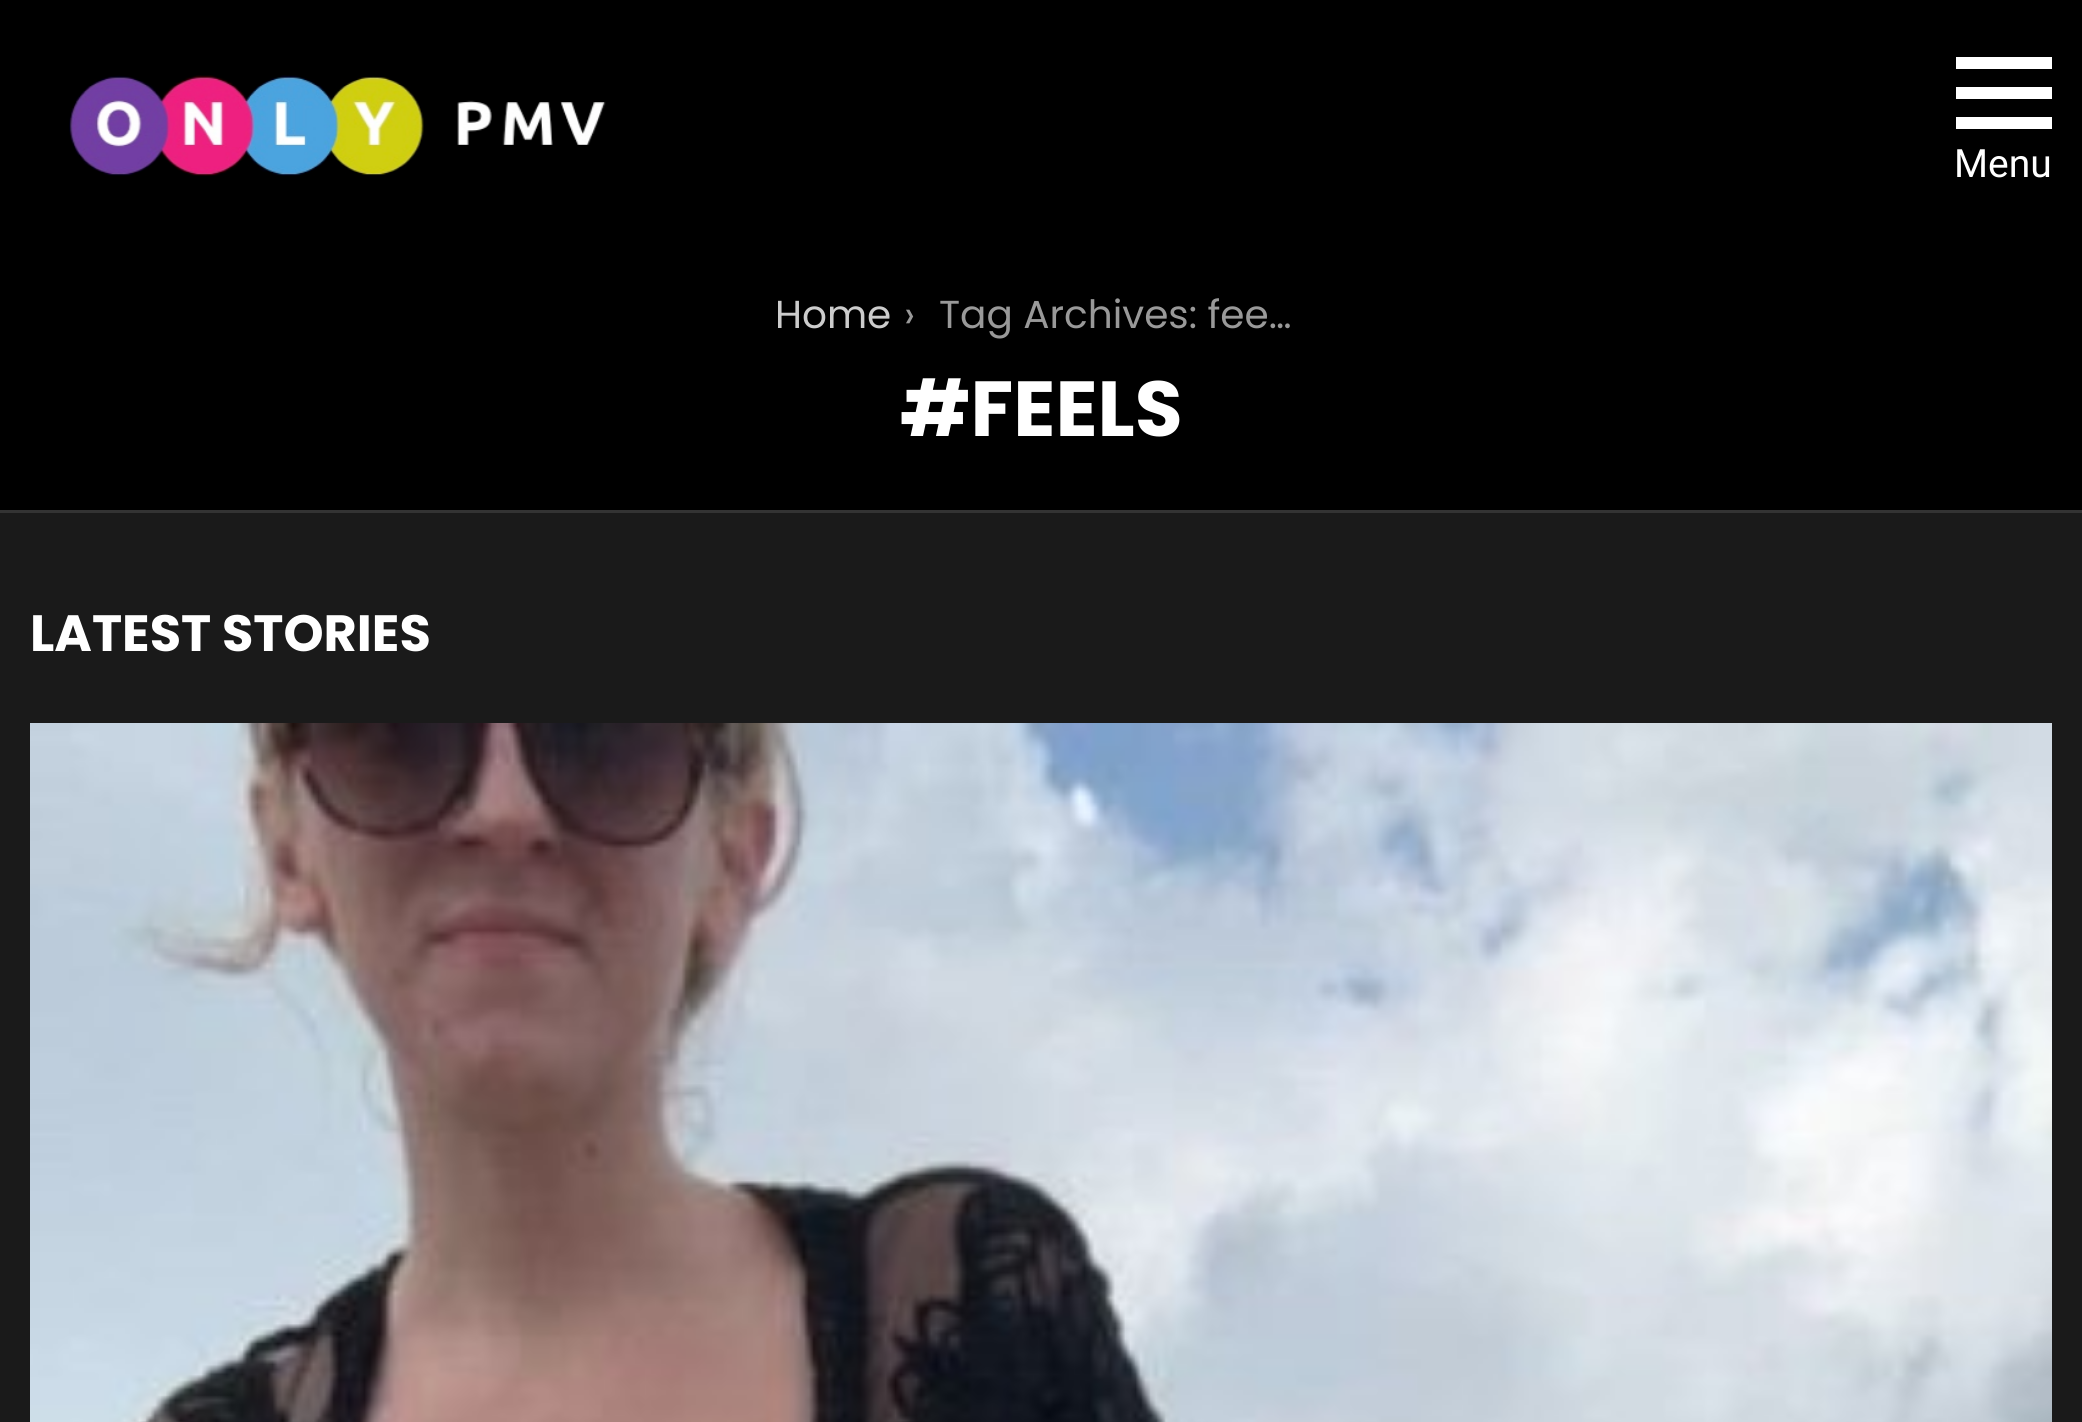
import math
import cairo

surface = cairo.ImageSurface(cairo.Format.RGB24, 2082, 1422)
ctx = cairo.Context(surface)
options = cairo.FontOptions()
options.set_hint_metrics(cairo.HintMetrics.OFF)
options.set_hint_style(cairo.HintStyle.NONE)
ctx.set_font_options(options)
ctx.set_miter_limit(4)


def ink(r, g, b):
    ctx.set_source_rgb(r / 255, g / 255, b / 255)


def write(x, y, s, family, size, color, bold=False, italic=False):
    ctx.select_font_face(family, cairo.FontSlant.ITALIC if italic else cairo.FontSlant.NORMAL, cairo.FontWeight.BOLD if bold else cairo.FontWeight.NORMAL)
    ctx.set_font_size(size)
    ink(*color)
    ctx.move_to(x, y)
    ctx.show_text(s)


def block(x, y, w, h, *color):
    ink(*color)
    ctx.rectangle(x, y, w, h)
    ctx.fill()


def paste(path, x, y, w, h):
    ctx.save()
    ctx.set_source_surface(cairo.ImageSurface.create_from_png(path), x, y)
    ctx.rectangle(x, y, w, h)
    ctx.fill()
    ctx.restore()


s1 = dict(family="Roboto", size=39, color=(255, 255, 255))
s2 = dict(family="Poppins", size=39, color=(204, 204, 204))
s3 = dict(family="Poppins", size=39, color=(153, 153, 153))
s4 = dict(family="Poppins", size=78, color=(255, 255, 255), bold=True)
s5 = dict(family="Poppins", size=51, color=(255, 255, 255), bold=True)

ink(0, 0, 0)
ctx.paint()
paste("pic1.png", 69, 75, 537, 101)
ink(255, 255, 255)
ctx.new_path()
ctx.move_to(1956, 57)
ctx.line_to(2052, 57)
ctx.line_to(2052, 69)
ctx.line_to(1956, 69)
ctx.close_path()
ctx.move_to(1956, 87)
ctx.line_to(2052, 87)
ctx.line_to(2052, 99)
ctx.line_to(1956, 99)
ctx.close_path()
ctx.move_to(1956, 117)
ctx.line_to(2052, 117)
ctx.line_to(2052, 129)
ctx.line_to(1956, 129)
ctx.close_path()
ctx.fill()
write(1954, 177, "Menu", **s1)
write(775, 328, "Home", **s2)
write(904, 328, "›", **s3)
write(939, 328, "Tag Archives: fee…", **s3)
write(900, 436, "#FEELS", **s4)
block(0, 510, 2082, 3, 51, 51, 51)
block(0, 513, 2082, 909, 26, 26, 26)
write(30, 651, "LATEST STORIES", **s5)
paste("pic2.png", 30, 723, 2022, 699)
surface.write_to_png("screenshot.png")
